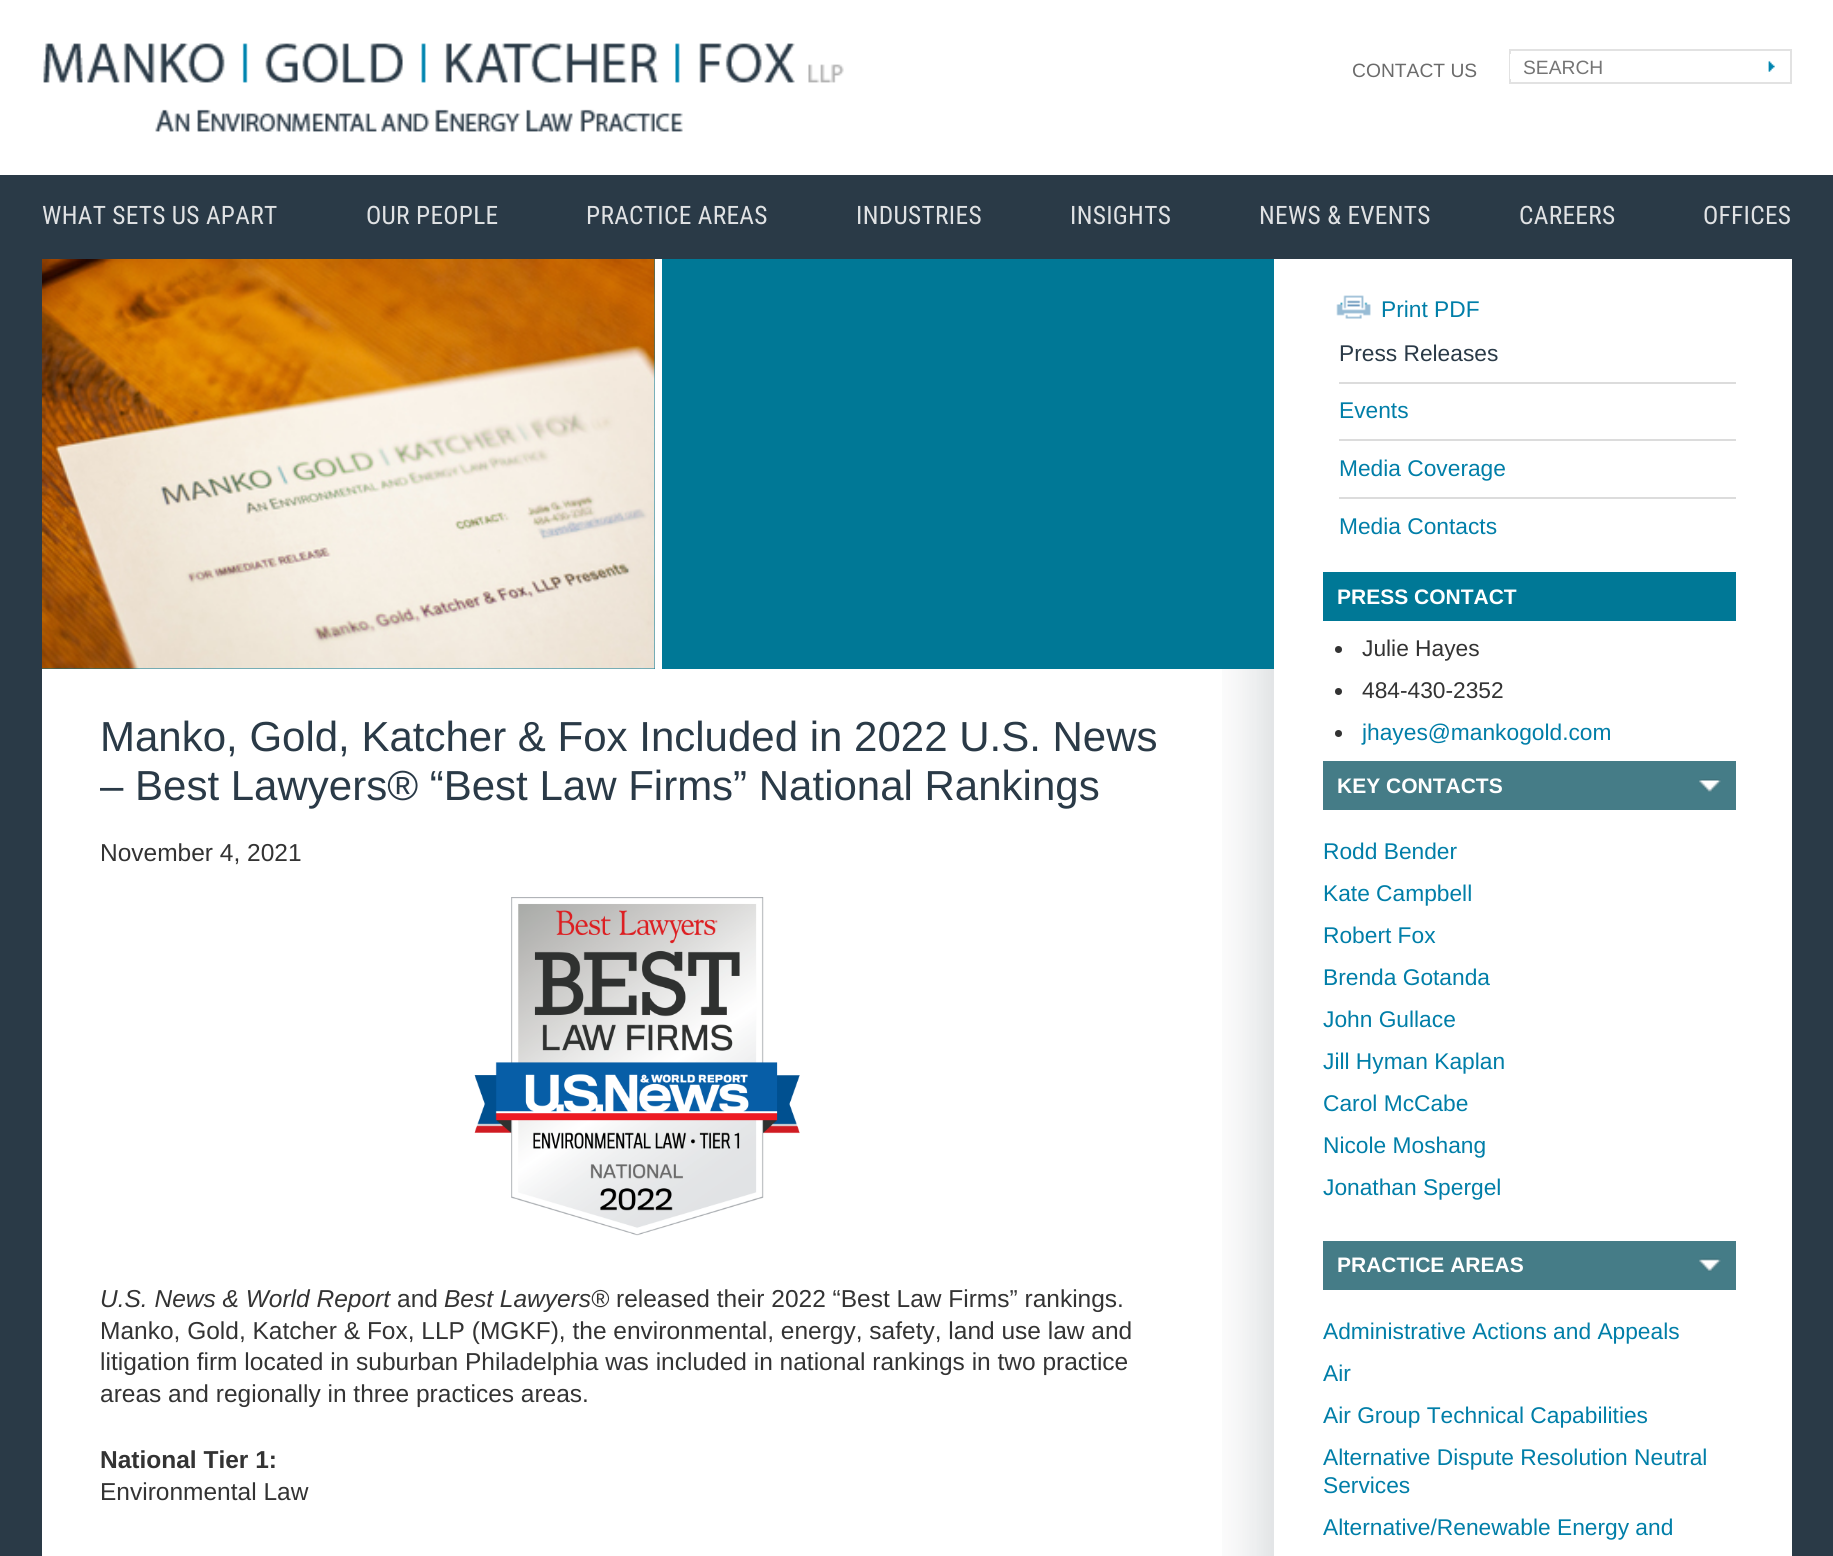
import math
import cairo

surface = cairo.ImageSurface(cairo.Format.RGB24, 1833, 1556)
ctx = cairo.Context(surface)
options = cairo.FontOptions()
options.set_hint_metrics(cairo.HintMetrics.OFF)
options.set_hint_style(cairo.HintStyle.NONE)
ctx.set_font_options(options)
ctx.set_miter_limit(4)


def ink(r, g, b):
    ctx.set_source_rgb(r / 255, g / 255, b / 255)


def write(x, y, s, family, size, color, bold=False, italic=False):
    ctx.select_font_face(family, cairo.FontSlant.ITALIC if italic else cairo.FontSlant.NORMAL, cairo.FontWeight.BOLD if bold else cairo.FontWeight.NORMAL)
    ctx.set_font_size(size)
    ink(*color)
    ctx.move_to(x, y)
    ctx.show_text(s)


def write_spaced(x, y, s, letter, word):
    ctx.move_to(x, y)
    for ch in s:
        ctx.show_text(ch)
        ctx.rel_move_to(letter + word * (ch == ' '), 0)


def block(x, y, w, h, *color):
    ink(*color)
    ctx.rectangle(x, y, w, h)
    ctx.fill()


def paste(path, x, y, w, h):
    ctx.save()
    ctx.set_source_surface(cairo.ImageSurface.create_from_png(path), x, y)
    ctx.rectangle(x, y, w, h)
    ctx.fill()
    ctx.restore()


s1 = dict(family="Liberation Sans", size=19.25, color=(107, 107, 107))
s2 = dict(family="Liberation Sans", size=19.25, color=(117, 117, 117))
s3 = dict(family="Liberation Sans", size=22.75, color=(0, 126, 168))
s4 = dict(family="Liberation Sans", size=22.75, color=(42, 58, 71))
s5 = dict(family="Liberation Sans", size=21, color=(255, 255, 255), bold=True)
s6 = dict(family="Liberation Sans", size=22.75, color=(51, 51, 51))
s7 = dict(family="Liberation Sans", size=42, color=(42, 58, 71))
s8 = dict(family="Liberation Sans", size=24.5, color=(51, 51, 51))
s9 = dict(family="Liberation Sans", size=24.5, color=(51, 51, 51), italic=True)
s10 = dict(family="Liberation Sans", size=24.5, color=(51, 51, 51), bold=True)

ink(42, 58, 71)
ctx.paint()
block(0, 0, 1833, 175, 255, 255, 255)
paste("pic1.png", 43, 43, 801, 89)
write(1352, 77, "CONTACT US", **s1)
ctx.rectangle(1510, 50, 281, 33)
ink(226, 226, 226)
ctx.stroke()
block(1510, 54, 1, 25, 255, 255, 255)
write(1523, 74, "SEARCH", **s2)
paste("pic2.png", 1768, 61, 7, 11)
ctx.select_font_face("Roboto Condensed")
ctx.set_font_size(25.4)
ink(224, 226, 228)
write_spaced(42, 224, "WHAT SETS US APART", 0.3, 0)
write_spaced(366, 224, "OUR PEOPLE", 0.3, 0)
write_spaced(586, 224, "PRACTICE AREAS", 0.3, 0)
write_spaced(856, 224, "INDUSTRIES", 0.3, 0)
write_spaced(1070, 224, "INSIGHTS", 0.3, 0)
write_spaced(1259, 224, "NEWS & EVENTS", 0.3, 0)
write_spaced(1519, 224, "CAREERS", 0.3, 0)
write_spaced(1703, 224, "OFFICES", 0.3, 0)
block(42, 259, 1750, 1297, 255, 255, 255)
paste("pic3.png", 1222, 669, 52, 887)
block(42, 259, 1232, 410, 0, 120, 150)
block(655, 259, 7, 410, 255, 255, 255)
paste("pic4.png", 42, 259, 613, 410)
paste("pic5.png", 1336, 295, 35, 24)
write(1381, 317, "Print PDF", **s3)
write(1339, 361, "Press Releases", **s4)
block(1339, 382, 397, 2, 220, 220, 220)
write(1339, 418, "Events", **s3)
block(1339, 439, 397, 2, 220, 220, 220)
write(1339, 476, "Media Coverage", **s3)
block(1339, 497, 397, 2, 220, 220, 220)
write(1339, 534, "Media Contacts", **s3)
block(1323, 572, 413, 49, 0, 120, 150)
write(1337, 604, "PRESS CONTACT", **s5)
ink(51, 51, 51)
ctx.new_path()
ctx.arc(1338.5, 649.5, 3.5, 0, 2 * math.pi)
ctx.fill()
write(1362, 656, "Julie Hayes", **s6)
ctx.new_path()
ctx.arc(1338.5, 691.5, 3.5, 0, 2 * math.pi)
ctx.fill()
write(1362, 698, "484-430-2352", **s6)
ctx.new_path()
ctx.arc(1338.5, 733.5, 3.5, 0, 2 * math.pi)
ctx.fill()
write(1362, 740, "jhayes@mankogold.com", **s3)
block(1323, 761, 413, 49, 69, 124, 135)
paste("pic6.png", 1699, 779, 22, 13)
write(1337, 793, "KEY CONTACTS", **s5)
write(1323, 859, "Rodd Bender", **s3)
write(1323, 901, "Kate Campbell", **s3)
write(1323, 943, "Robert Fox", **s3)
write(1323, 985, "Brenda Gotanda", **s3)
write(1323, 1027, "John Gullace", **s3)
write(1323, 1069, "Jill Hyman Kaplan", **s3)
write(1323, 1111, "Carol McCabe", **s3)
write(1323, 1153, "Nicole Moshang", **s3)
write(1323, 1195, "Jonathan Spergel", **s3)
block(1323, 1241, 413, 49, 69, 124, 135)
paste("pic7.png", 1699, 1258, 22, 14)
write(1337, 1272, "PRACTICE AREAS", **s5)
write(1323, 1339, "Administrative Actions and Appeals", **s3)
write(1323, 1381, "Air", **s3)
write(1323, 1423, "Air Group Technical Capabilities", **s3)
write(1323, 1465, "Alternative Dispute Resolution Neutral", **s3)
write(1323, 1493, "Services", **s3)
write(1323, 1535, "Alternative/Renewable Energy and", **s3)
write(100, 751, "Manko, Gold, Katcher & Fox Included in 2022 U.S. News", **s7)
write(100, 800, "– Best Lawyers® “Best Law Firms” National Rankings", **s7)
write(100, 861, "November 4, 2021", **s8)
paste("pic8.png", 474, 897, 326, 339)
write(100, 1307, "U.S. News & World Report", **s9)
write(397, 1307, "and", **s8)
write(444, 1307, "Best Lawyers®", **s9)
write(616, 1307, "released their 2022 “Best Law Firms” rankings.", **s8)
write(100, 1339, "Manko, Gold, Katcher & Fox, LLP (MGKF), the environmental, energy, safety, land use law and", **s8)
write(100, 1370, "litigation firm located in suburban Philadelphia was included in national rankings in two practice", **s8)
write(100, 1402, "areas and regionally in three practices areas.", **s8)
write(100, 1468, "National Tier 1:", **s10)
write(100, 1500, "Environmental Law", **s8)
surface.write_to_png("screenshot.png")
